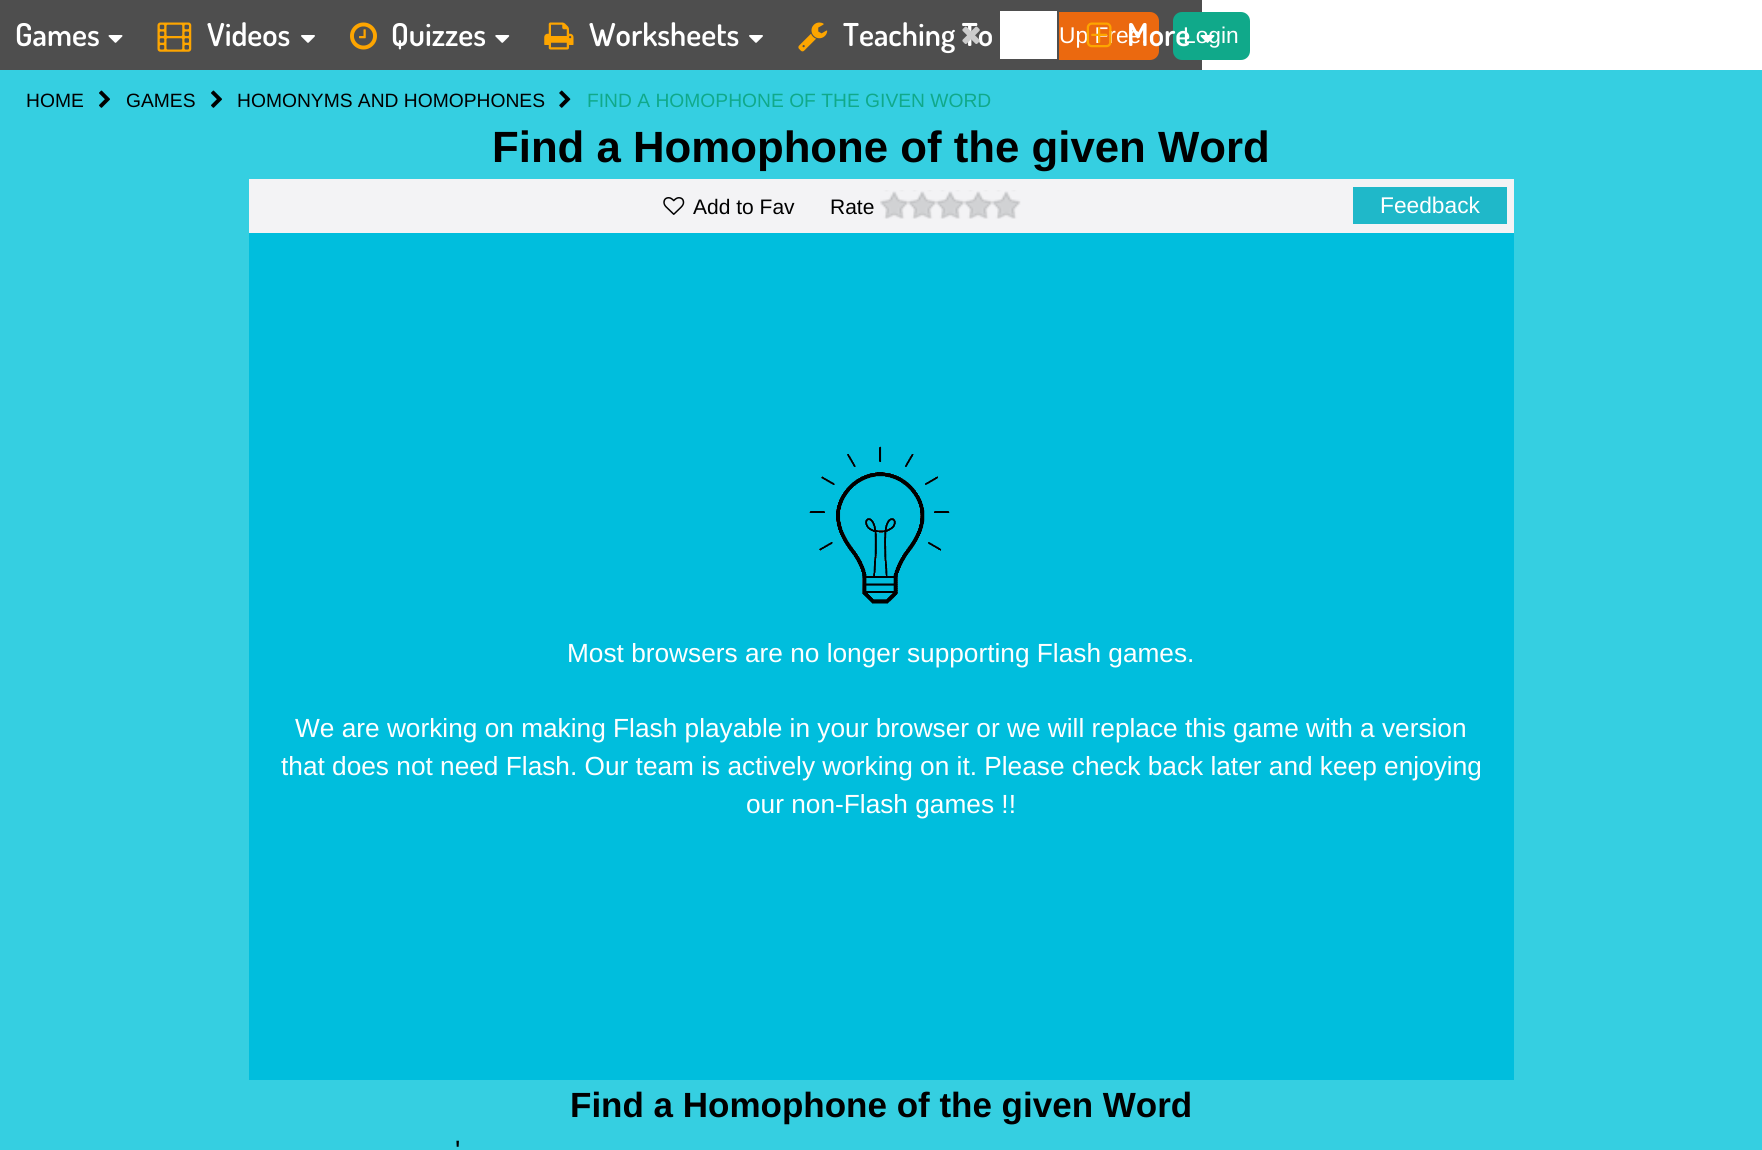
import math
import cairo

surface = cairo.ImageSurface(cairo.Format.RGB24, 1762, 1150)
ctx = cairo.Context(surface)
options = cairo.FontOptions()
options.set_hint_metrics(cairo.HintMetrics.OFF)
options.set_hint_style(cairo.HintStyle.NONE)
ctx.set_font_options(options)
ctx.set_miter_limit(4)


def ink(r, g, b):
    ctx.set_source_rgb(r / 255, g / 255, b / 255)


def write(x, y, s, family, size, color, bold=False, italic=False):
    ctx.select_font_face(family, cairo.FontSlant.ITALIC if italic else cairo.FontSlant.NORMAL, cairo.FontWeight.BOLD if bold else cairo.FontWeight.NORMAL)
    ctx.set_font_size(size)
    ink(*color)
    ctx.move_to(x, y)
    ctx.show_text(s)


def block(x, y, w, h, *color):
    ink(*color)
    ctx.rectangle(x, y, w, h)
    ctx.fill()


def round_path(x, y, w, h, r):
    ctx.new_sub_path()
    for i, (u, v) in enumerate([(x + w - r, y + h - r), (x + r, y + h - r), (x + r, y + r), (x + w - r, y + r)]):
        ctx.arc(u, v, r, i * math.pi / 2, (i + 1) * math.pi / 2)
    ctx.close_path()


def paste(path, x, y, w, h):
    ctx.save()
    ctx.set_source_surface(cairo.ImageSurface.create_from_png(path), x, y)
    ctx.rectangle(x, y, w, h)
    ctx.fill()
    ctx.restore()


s1 = dict(family="Dosis SemiBold", size=31.5, color=(255, 255, 255))
s2 = dict(family="Liberation Sans", size=22.75, color=(255, 255, 255))
s3 = dict(family="Liberation Sans", size=19.25, color=(0, 0, 0))
s4 = dict(family="Liberation Sans", size=19.25, color=(16, 169, 138))
s5 = dict(family="Liberation Sans", size=43.75, color=(0, 0, 0), bold=True)
s6 = dict(family="Liberation Sans", size=21, color=(0, 0, 0))
s7 = dict(family="Liberation Sans", size=26.25, color=(255, 255, 255))
s8 = dict(family="Liberation Sans", size=35, color=(0, 0, 0), bold=True)
s9 = dict(family="Liberation Sans", size=28, color=(0, 0, 0))

ink(255, 255, 255)
ctx.paint()
block(0, 0, 1202, 70, 78, 78, 78)
write(15, 46, "Games", **s1)
paste("pic1.png", 108, 35, 15, 8)
paste("pic2.png", 157, 22, 35, 30)
write(207, 46, "Videos", **s1)
paste("pic3.png", 301, 35, 14, 8)
paste("pic4.png", 350, 22, 27, 28)
write(391, 46, "Quizzes", **s1)
paste("pic5.png", 495, 35, 15, 8)
paste("pic6.png", 544, 22, 30, 28)
write(589, 46, "Worksheets", **s1)
paste("pic3.png", 749, 35, 14, 8)
paste("pic7.png", 798, 22, 30, 30)
write(843, 46, "Teaching To", **s1)
ink(235, 105, 15)
round_path(998, 12, 161, 48, 9)
ctx.fill()
write(1059, 43, "Up Free!", **s2)
paste("pic8.png", 1086, 22, 26, 26)
ink(16, 169, 138)
round_path(1173, 12, 77, 48, 9)
ctx.fill()
write(1183, 43, "Login", **s2)
write(1127, 46, "More", **s1)
paste("pic9.png", 1200, 35, 15, 8)
paste("pic10.png", 962, 26, 18, 18)
ctx.rectangle(999, 10, 59, 50)
ctx.fill_preserve()
ink(78, 78, 78)
ctx.stroke()
block(0, 70, 1762, 1080, 53, 207, 225)
write(26, 107, "HOME", **s3)
paste("pic11.png", 99, 90, 11, 18)
write(126, 107, "GAMES", **s3)
paste("pic11.png", 211, 90, 11, 18)
write(237, 107, "HOMONYMS AND HOMOPHONES", **s3)
paste("pic12.png", 559, 90, 12, 18)
write(587, 107, "FIND A HOMOPHONE OF THE GIVEN WORD", **s4)
write(492, 162, "Find a Homophone of the given Word", **s5)
block(249, 179, 1265, 54, 243, 243, 245)
paste("pic13.png", 663, 197, 22, 18)
write(693, 214, "Add to Fav", **s6)
write(830, 214, "Rate", **s6)
paste("pic14.png", 880, 190, 141, 29)
block(1353, 187, 154, 37, 31, 184, 201)
write(1380, 213, "Feedback", **s2)
block(249, 233, 1265, 847, 0, 190, 221)
paste("pic15.png", 809, 446, 141, 158)
write(567, 662, "Most browsers are no longer supporting Flash games.", **s7)
write(295, 737, "We are working on making Flash playable in your browser or we will replace this game with a version", **s7)
write(281, 775, "that does not need Flash. Our team is actively working on it. Please check back later and keep enjoying", **s7)
write(746, 813, "our non-Flash games !!", **s7)
write(570, 1117, "Find a Homophone of the given Word", **s8)
write(455, 1160, "'", **s9)
surface.write_to_png("screenshot.png")
